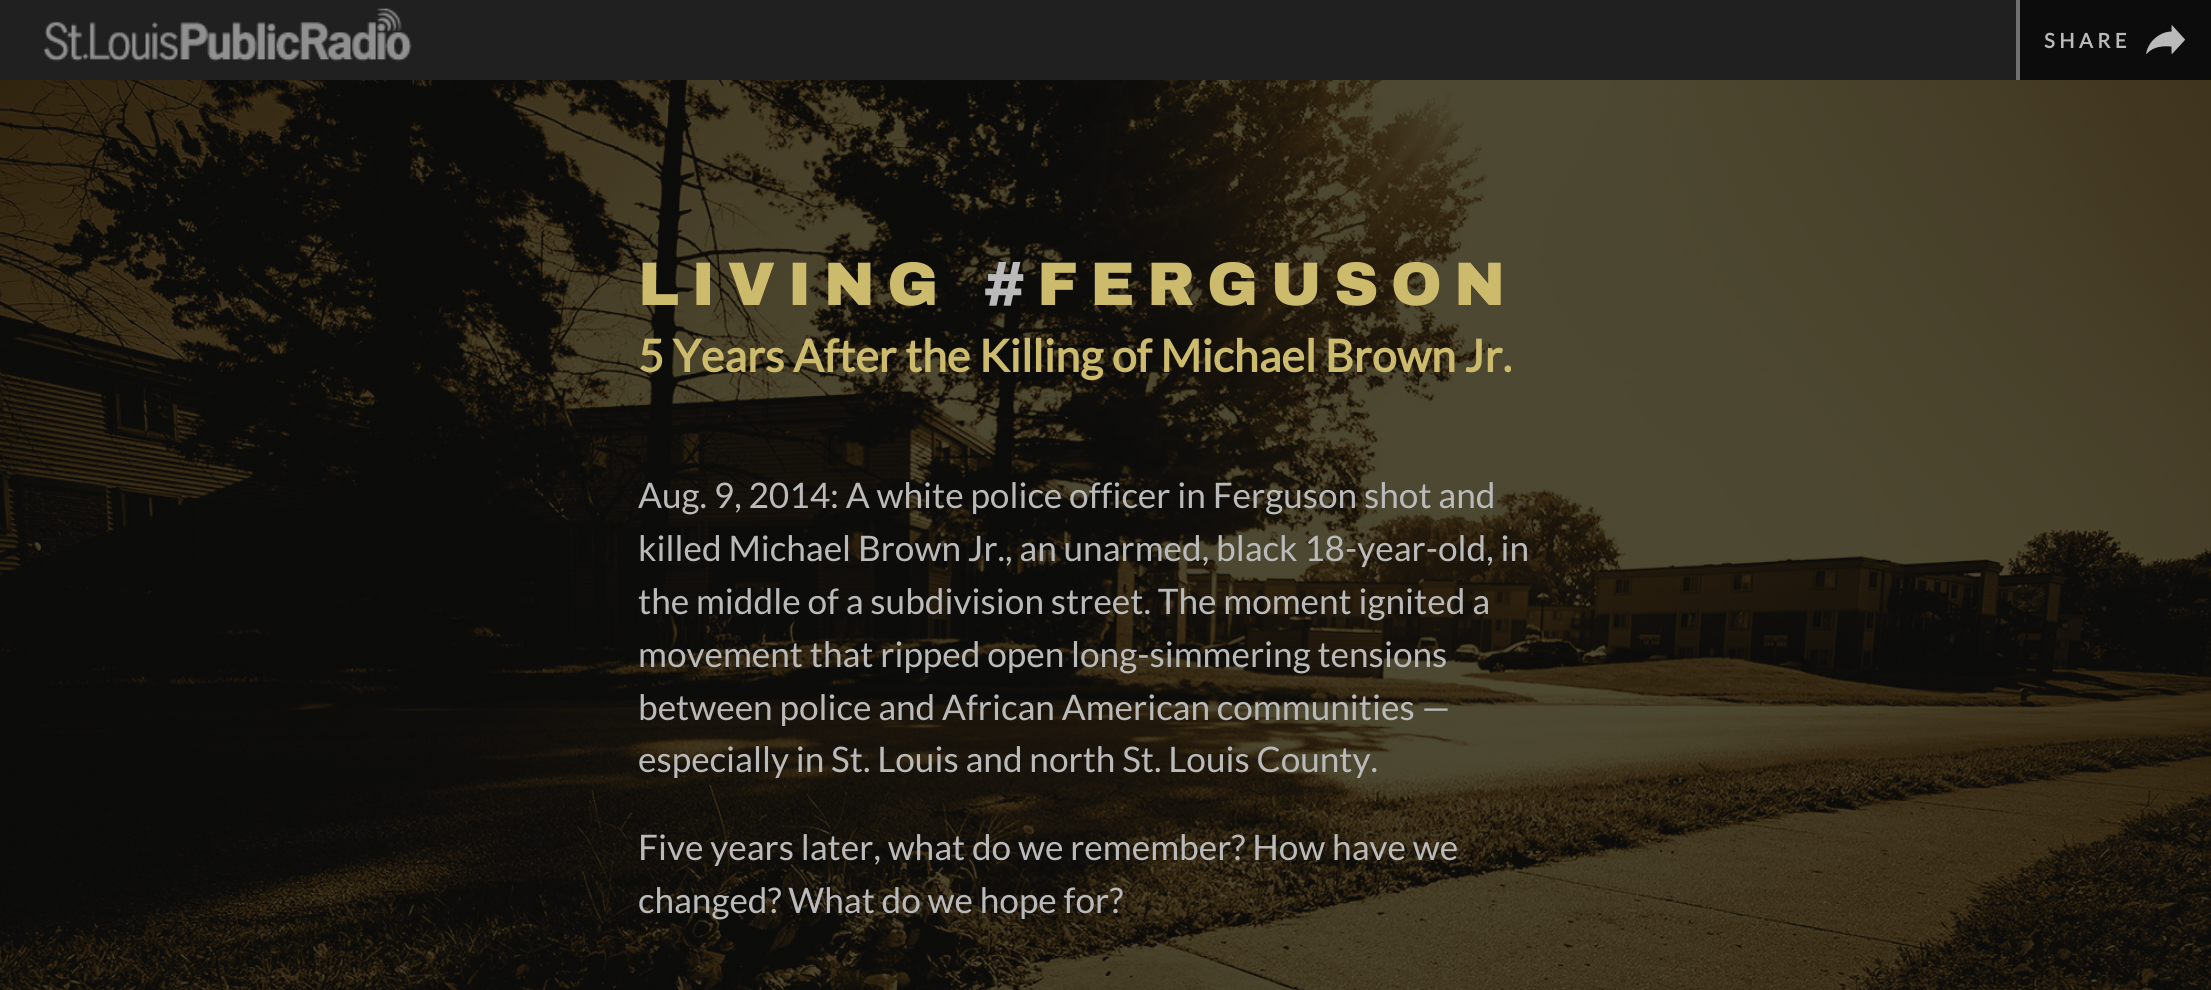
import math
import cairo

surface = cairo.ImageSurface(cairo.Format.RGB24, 2211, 990)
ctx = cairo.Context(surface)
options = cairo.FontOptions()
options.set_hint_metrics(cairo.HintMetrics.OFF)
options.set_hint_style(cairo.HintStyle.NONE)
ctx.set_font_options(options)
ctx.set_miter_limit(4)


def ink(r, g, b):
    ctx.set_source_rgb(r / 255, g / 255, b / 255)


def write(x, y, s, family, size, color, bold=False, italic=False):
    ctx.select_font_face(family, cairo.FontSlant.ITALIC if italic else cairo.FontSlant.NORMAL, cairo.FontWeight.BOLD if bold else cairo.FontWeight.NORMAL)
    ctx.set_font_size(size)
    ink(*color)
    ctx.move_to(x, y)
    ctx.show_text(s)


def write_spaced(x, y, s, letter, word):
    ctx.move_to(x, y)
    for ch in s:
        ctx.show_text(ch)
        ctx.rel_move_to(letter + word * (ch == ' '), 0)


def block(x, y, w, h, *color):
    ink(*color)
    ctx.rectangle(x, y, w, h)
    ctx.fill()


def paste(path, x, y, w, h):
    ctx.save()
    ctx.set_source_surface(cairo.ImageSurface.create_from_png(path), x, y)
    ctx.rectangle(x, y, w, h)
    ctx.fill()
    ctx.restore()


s1 = dict(family="Lato", size=44.75, color=(204, 186, 109), bold=True)
s2 = dict(family="Lato", size=35.2, color=(186, 186, 186))

ink(33, 32, 32)
ctx.paint()
paste("pic1.png", 43, 7, 369, 55)
block(2020, 0, 191, 80, 12, 12, 12)
block(2016, 0, 4, 80, 112, 112, 112)
ctx.select_font_face("Lato", cairo.FontSlant.NORMAL, cairo.FontWeight.BOLD)
ctx.set_font_size(20.25)
ink(186, 186, 186)
write_spaced(2044, 48, "SHARE", 4.5, 0)
paste("pic2.png", 2146, 25, 39, 29)
paste("pic3.png", 0, 80, 2211, 910)
ctx.select_font_face("Archivo Black Black")
ctx.set_font_size(61.5)
ink(204, 186, 109)
write_spaced(638, 305, "LIVING", 12.25, 0)
ink(186, 186, 186)
write_spaced(984, 305, "#", 12.25, 0)
ink(204, 186, 109)
write_spaced(1037, 305, "FERGUSON", 12.25, 0)
write(638, 372, "5 Years After the Killing of Michael Brown Jr.", **s1)
write(638, 508, "Aug. 9, 2014: A white police officer in Ferguson shot and", **s2)
write(638, 561, "killed Michael Brown Jr., an unarmed, black 18-year-old, in", **s2)
write(638, 614, "the middle of a subdivision street. The moment ignited a", **s2)
write(638, 667, "movement that ripped open long-simmering tensions", **s2)
write(638, 720, "between police and African American communities —", **s2)
write(638, 772, "especially in St. Louis and north St. Louis County.", **s2)
write(638, 860, "Five years later, what do we remember? How have we", **s2)
write(638, 913, "changed? What do we hope for?", **s2)
surface.write_to_png("screenshot.png")
